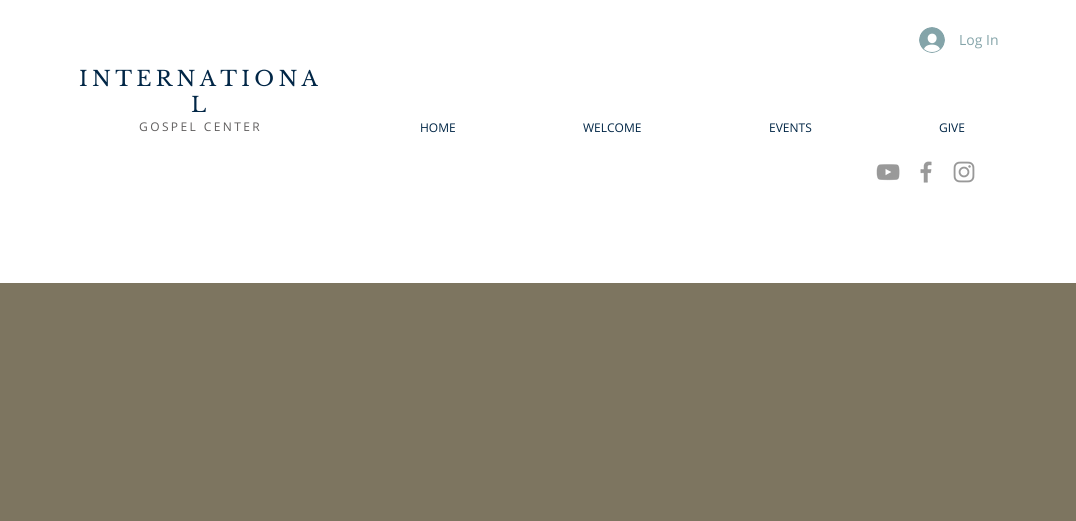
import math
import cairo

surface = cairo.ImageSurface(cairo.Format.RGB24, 1076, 521)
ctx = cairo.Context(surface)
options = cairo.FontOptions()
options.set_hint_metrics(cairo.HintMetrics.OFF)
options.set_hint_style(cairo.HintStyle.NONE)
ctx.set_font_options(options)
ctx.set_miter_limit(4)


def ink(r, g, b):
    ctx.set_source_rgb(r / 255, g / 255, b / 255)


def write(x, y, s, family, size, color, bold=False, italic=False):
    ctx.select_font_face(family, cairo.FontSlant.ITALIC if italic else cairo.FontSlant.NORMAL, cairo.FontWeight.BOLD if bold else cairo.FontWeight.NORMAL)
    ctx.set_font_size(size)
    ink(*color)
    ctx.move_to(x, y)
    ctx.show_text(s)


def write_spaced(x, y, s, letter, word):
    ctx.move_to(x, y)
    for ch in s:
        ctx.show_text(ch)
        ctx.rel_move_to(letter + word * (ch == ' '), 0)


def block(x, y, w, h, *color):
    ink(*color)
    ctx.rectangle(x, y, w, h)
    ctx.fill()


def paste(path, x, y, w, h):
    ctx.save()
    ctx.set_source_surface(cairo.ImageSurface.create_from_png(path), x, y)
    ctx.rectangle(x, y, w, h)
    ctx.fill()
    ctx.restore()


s1 = dict(family="Open Sans", size=14, color=(132, 164, 169))
s2 = dict(family="Open Sans", size=12, color=(1, 38, 70))

ink(255, 255, 255)
ctx.paint()
paste("pic1.png", 919, 27, 26, 26)
write(959, 45, "Log In", **s1)
ctx.select_font_face("Libre Baskerville")
ctx.set_font_size(21)
ink(1, 38, 70)
write_spaced(79, 86, "INTERNATIONA", 4.25, 0)
write_spaced(191, 112, "L", 4.25, 0)
ctx.select_font_face("Open Sans")
ctx.set_font_size(12)
ink(96, 94, 94)
write_spaced(139, 131, "GOSPEL CENTER", 2.4, 0)
write(420, 132, "HOME", **s2)
write(583, 132, "WELCOME", **s2)
write(769, 132, "EVENTS", **s2)
write(939, 132, "GIVE", **s2)
paste("pic2.png", 876, 164, 24, 17)
paste("pic3.png", 920, 161, 12, 22)
paste("pic4.png", 953, 161, 22, 22)
block(0, 283, 1076, 238, 125, 117, 96)
surface.write_to_png("screenshot.png")
